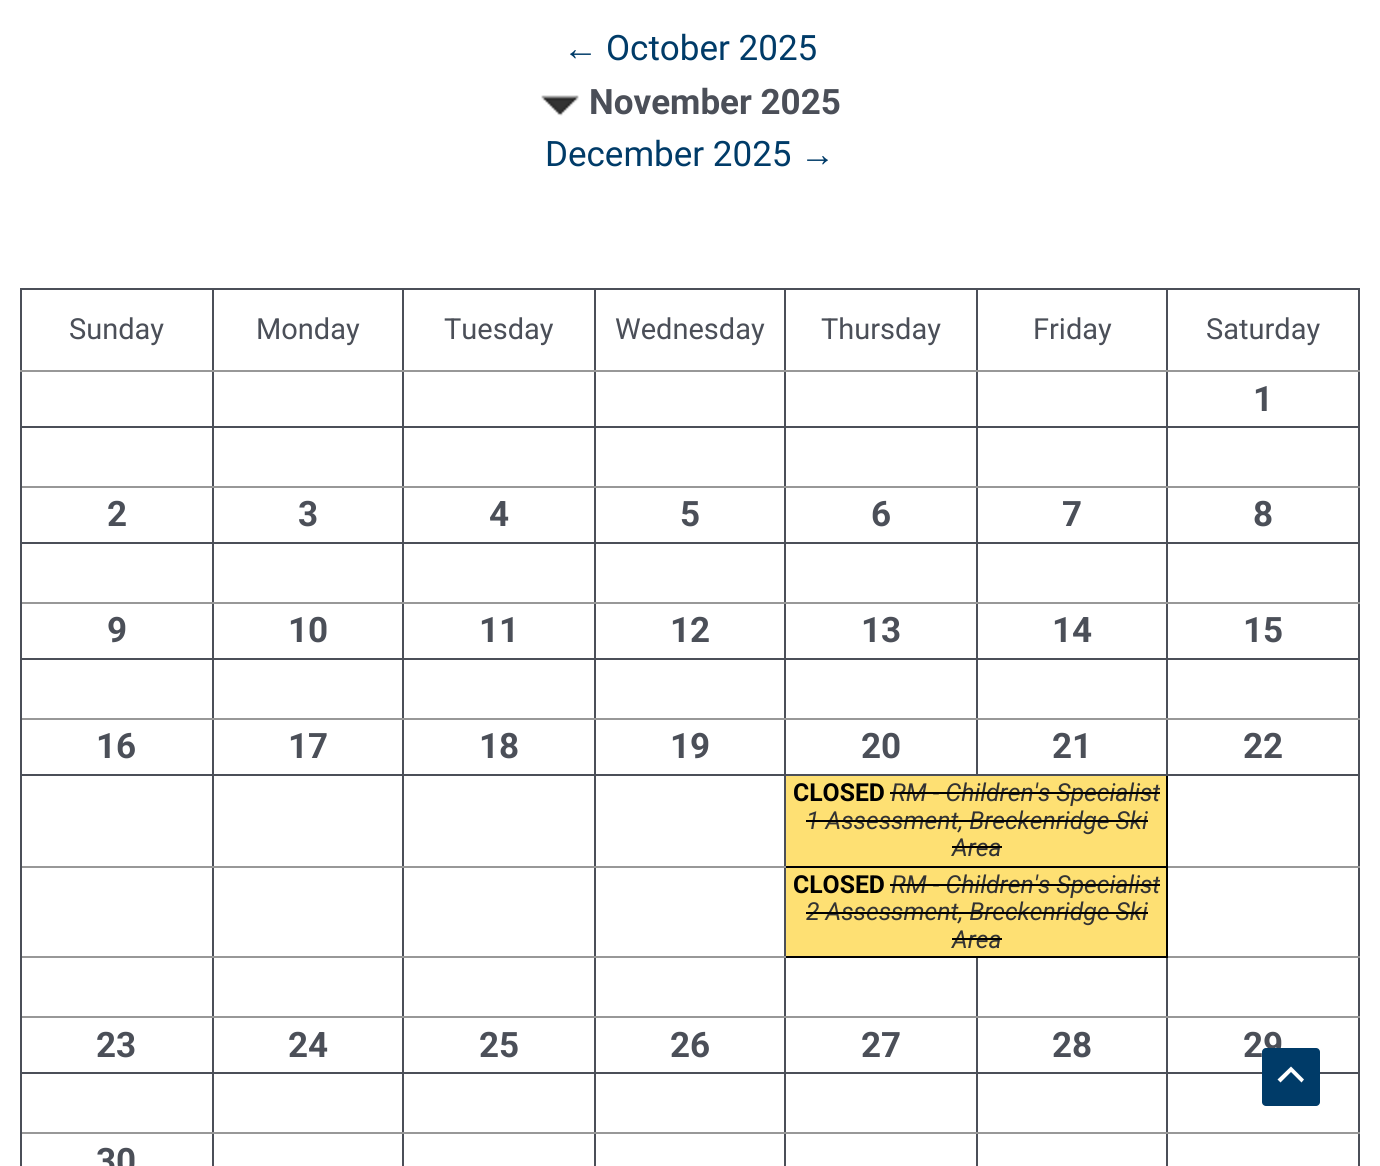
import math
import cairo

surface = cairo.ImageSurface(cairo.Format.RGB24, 1380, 1166)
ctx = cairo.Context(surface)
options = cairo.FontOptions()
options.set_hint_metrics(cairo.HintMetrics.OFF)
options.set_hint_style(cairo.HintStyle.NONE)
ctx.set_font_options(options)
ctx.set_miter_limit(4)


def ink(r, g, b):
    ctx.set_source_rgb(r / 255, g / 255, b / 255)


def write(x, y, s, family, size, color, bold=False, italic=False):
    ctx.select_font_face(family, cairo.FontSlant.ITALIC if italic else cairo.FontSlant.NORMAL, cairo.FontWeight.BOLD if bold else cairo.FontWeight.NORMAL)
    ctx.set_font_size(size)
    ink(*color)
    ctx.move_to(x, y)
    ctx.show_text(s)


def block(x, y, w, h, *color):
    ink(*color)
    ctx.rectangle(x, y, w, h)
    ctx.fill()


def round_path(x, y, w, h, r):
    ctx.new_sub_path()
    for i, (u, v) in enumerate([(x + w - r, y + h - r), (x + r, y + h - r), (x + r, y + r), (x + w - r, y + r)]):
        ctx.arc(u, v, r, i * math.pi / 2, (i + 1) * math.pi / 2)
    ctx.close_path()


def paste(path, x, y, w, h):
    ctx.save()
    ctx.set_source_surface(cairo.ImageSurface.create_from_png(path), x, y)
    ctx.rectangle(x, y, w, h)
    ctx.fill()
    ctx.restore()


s1 = dict(family="Liberation Sans", size=35, color=(0, 59, 104))
s2 = dict(family="Roboto", size=35, color=(0, 59, 104))
s3 = dict(family="Roboto", size=35, color=(75, 79, 88), bold=True)
s4 = dict(family="Roboto", size=29, color=(75, 79, 88))
s5 = dict(family="Roboto", size=24.75, color=(0, 0, 0), bold=True)
s6 = dict(family="Roboto", size=24.75, color=(51, 51, 51), italic=True)

ink(255, 255, 255)
ctx.paint()
write(563, 60, "←", **s1)
write(606, 60, "October 2025", **s2)
paste("pic1.png", 541, 95, 38, 21)
write(589, 114, "November 2025", **s3)
write(545, 166, "December 2025", **s2)
write(800, 166, "→", **s1)
block(20, 288, 1340, 2, 75, 79, 88)
block(1358, 288, 2, 878, 75, 79, 88)
block(20, 288, 2, 878, 75, 79, 88)
block(1166, 1132, 2, 34, 75, 79, 88)
block(1166, 1132, 194, 2, 152, 152, 152)
block(1166, 1072, 2, 62, 75, 79, 88)
block(1166, 1072, 194, 2, 75, 79, 88)
block(1166, 1016, 2, 58, 75, 79, 88)
block(1166, 1016, 194, 2, 152, 152, 152)
block(1166, 956, 2, 62, 75, 79, 88)
block(1166, 956, 194, 2, 152, 152, 152)
block(1166, 866, 2, 92, 0, 0, 0)
block(1166, 866, 194, 2, 152, 152, 152)
block(1166, 774, 2, 94, 0, 0, 0)
block(1166, 774, 194, 2, 75, 79, 88)
block(1166, 718, 2, 58, 75, 79, 88)
block(1166, 718, 194, 2, 152, 152, 152)
block(1166, 658, 2, 62, 75, 79, 88)
block(1166, 658, 194, 2, 75, 79, 88)
block(1166, 602, 2, 58, 75, 79, 88)
block(1166, 602, 194, 2, 152, 152, 152)
block(1166, 542, 2, 62, 75, 79, 88)
block(1166, 542, 194, 2, 75, 79, 88)
block(1166, 486, 2, 58, 75, 79, 88)
block(1166, 486, 194, 2, 152, 152, 152)
block(1166, 426, 2, 62, 75, 79, 88)
block(1166, 426, 194, 2, 75, 79, 88)
block(1166, 370, 2, 58, 75, 79, 88)
block(1166, 370, 194, 2, 152, 152, 152)
block(1166, 288, 2, 84, 75, 79, 88)
block(976, 774, 192, 2, 75, 79, 88)
block(976, 718, 2, 58, 75, 79, 88)
block(976, 718, 192, 2, 152, 152, 152)
block(976, 658, 2, 62, 75, 79, 88)
block(976, 658, 192, 2, 75, 79, 88)
block(976, 602, 2, 58, 75, 79, 88)
block(976, 602, 192, 2, 152, 152, 152)
block(976, 542, 2, 62, 75, 79, 88)
block(976, 542, 192, 2, 75, 79, 88)
block(976, 486, 2, 58, 75, 79, 88)
block(976, 486, 192, 2, 152, 152, 152)
block(976, 426, 2, 62, 75, 79, 88)
block(976, 426, 192, 2, 75, 79, 88)
block(976, 370, 2, 58, 75, 79, 88)
block(976, 370, 192, 2, 152, 152, 152)
block(976, 288, 2, 84, 75, 79, 88)
block(976, 1132, 2, 34, 75, 79, 88)
block(976, 1132, 192, 2, 152, 152, 152)
block(976, 1072, 2, 62, 75, 79, 88)
block(976, 1072, 192, 2, 75, 79, 88)
block(976, 1016, 2, 58, 75, 79, 88)
block(976, 1016, 192, 2, 152, 152, 152)
block(976, 956, 2, 62, 75, 79, 88)
block(784, 1132, 2, 34, 75, 79, 88)
block(784, 1132, 194, 2, 152, 152, 152)
block(784, 1072, 2, 62, 75, 79, 88)
block(784, 1072, 194, 2, 75, 79, 88)
block(784, 1016, 2, 58, 75, 79, 88)
block(784, 1016, 194, 2, 152, 152, 152)
block(784, 956, 2, 62, 75, 79, 88)
block(784, 956, 384, 2, 0, 0, 0)
block(784, 866, 2, 92, 75, 79, 88)
block(784, 866, 384, 2, 0, 0, 0)
block(784, 774, 2, 94, 75, 79, 88)
block(784, 774, 194, 2, 75, 79, 88)
block(784, 718, 2, 58, 75, 79, 88)
block(784, 718, 194, 2, 152, 152, 152)
block(784, 658, 2, 62, 75, 79, 88)
block(784, 658, 194, 2, 75, 79, 88)
block(784, 602, 2, 58, 75, 79, 88)
block(784, 602, 194, 2, 152, 152, 152)
block(784, 542, 2, 62, 75, 79, 88)
block(784, 542, 194, 2, 75, 79, 88)
block(784, 486, 2, 58, 75, 79, 88)
block(784, 486, 194, 2, 152, 152, 152)
block(784, 426, 2, 62, 75, 79, 88)
block(784, 426, 194, 2, 75, 79, 88)
block(784, 370, 2, 58, 75, 79, 88)
block(784, 370, 194, 2, 152, 152, 152)
block(784, 288, 2, 84, 75, 79, 88)
block(594, 1132, 2, 34, 75, 79, 88)
block(594, 1132, 192, 2, 152, 152, 152)
block(594, 1072, 2, 62, 75, 79, 88)
block(594, 1072, 192, 2, 75, 79, 88)
block(594, 1016, 2, 58, 75, 79, 88)
block(594, 1016, 192, 2, 152, 152, 152)
block(594, 956, 2, 62, 75, 79, 88)
block(594, 956, 192, 2, 152, 152, 152)
block(594, 866, 2, 92, 75, 79, 88)
block(594, 866, 192, 2, 152, 152, 152)
block(594, 774, 2, 94, 75, 79, 88)
block(594, 774, 192, 2, 75, 79, 88)
block(594, 718, 2, 58, 75, 79, 88)
block(594, 718, 192, 2, 152, 152, 152)
block(594, 658, 2, 62, 75, 79, 88)
block(594, 658, 192, 2, 75, 79, 88)
block(594, 602, 2, 58, 75, 79, 88)
block(594, 602, 192, 2, 152, 152, 152)
block(594, 542, 2, 62, 75, 79, 88)
block(594, 542, 192, 2, 75, 79, 88)
block(594, 486, 2, 58, 75, 79, 88)
block(594, 486, 192, 2, 152, 152, 152)
block(594, 426, 2, 62, 75, 79, 88)
block(594, 426, 192, 2, 75, 79, 88)
block(594, 370, 2, 58, 75, 79, 88)
block(594, 370, 192, 2, 152, 152, 152)
block(594, 288, 2, 84, 75, 79, 88)
block(402, 1132, 2, 34, 75, 79, 88)
block(402, 1132, 194, 2, 152, 152, 152)
block(402, 1072, 2, 62, 75, 79, 88)
block(402, 1072, 194, 2, 75, 79, 88)
block(402, 1016, 2, 58, 75, 79, 88)
block(402, 1016, 194, 2, 152, 152, 152)
block(402, 956, 2, 62, 75, 79, 88)
block(402, 956, 194, 2, 152, 152, 152)
block(402, 866, 2, 92, 75, 79, 88)
block(402, 866, 194, 2, 152, 152, 152)
block(402, 774, 2, 94, 75, 79, 88)
block(402, 774, 194, 2, 75, 79, 88)
block(402, 718, 2, 58, 75, 79, 88)
block(402, 718, 194, 2, 152, 152, 152)
block(402, 658, 2, 62, 75, 79, 88)
block(402, 658, 194, 2, 75, 79, 88)
block(402, 602, 2, 58, 75, 79, 88)
block(402, 602, 194, 2, 152, 152, 152)
block(402, 542, 2, 62, 75, 79, 88)
block(402, 542, 194, 2, 75, 79, 88)
block(402, 486, 2, 58, 75, 79, 88)
block(402, 486, 194, 2, 152, 152, 152)
block(402, 426, 2, 62, 75, 79, 88)
block(402, 426, 194, 2, 75, 79, 88)
block(402, 370, 2, 58, 75, 79, 88)
block(402, 370, 194, 2, 152, 152, 152)
block(402, 288, 2, 84, 75, 79, 88)
block(212, 1132, 2, 34, 75, 79, 88)
block(212, 1132, 192, 2, 152, 152, 152)
block(212, 1072, 2, 62, 75, 79, 88)
block(212, 1072, 192, 2, 75, 79, 88)
block(212, 1016, 2, 58, 75, 79, 88)
block(212, 1016, 192, 2, 152, 152, 152)
block(212, 956, 2, 62, 75, 79, 88)
block(212, 956, 192, 2, 152, 152, 152)
block(212, 866, 2, 92, 75, 79, 88)
block(212, 866, 192, 2, 152, 152, 152)
block(212, 774, 2, 94, 75, 79, 88)
block(212, 774, 192, 2, 75, 79, 88)
block(212, 718, 2, 58, 75, 79, 88)
block(212, 718, 192, 2, 152, 152, 152)
block(212, 658, 2, 62, 75, 79, 88)
block(212, 658, 192, 2, 75, 79, 88)
block(212, 602, 2, 58, 75, 79, 88)
block(212, 602, 192, 2, 152, 152, 152)
block(212, 542, 2, 62, 75, 79, 88)
block(212, 542, 192, 2, 75, 79, 88)
block(212, 486, 2, 58, 75, 79, 88)
block(212, 486, 192, 2, 152, 152, 152)
block(212, 426, 2, 62, 75, 79, 88)
block(212, 426, 192, 2, 75, 79, 88)
block(212, 370, 2, 58, 75, 79, 88)
block(212, 370, 192, 2, 152, 152, 152)
block(212, 288, 2, 84, 75, 79, 88)
block(20, 370, 194, 2, 152, 152, 152)
write(69, 339, "Sunday", **s4)
write(256, 339, "Monday", **s4)
write(444, 339, "Tuesday", **s4)
write(615, 339, "Wednesday", **s4)
write(821, 339, "Thursday", **s4)
write(1033, 339, "Friday", **s4)
write(1206, 339, "Saturday", **s4)
write(1253, 411, "1", **s3)
block(20, 426, 194, 2, 75, 79, 88)
block(20, 486, 194, 2, 152, 152, 152)
block(20, 486, 2, 2, 75, 79, 88)
block(20, 542, 194, 2, 75, 79, 88)
write(107, 526, "2", **s3)
write(298, 526, "3", **s3)
write(489, 526, "4", **s3)
write(680, 526, "5", **s3)
write(871, 526, "6", **s3)
write(1062, 526, "7", **s3)
write(1253, 526, "8", **s3)
block(20, 602, 194, 2, 152, 152, 152)
block(20, 602, 2, 2, 75, 79, 88)
block(20, 658, 194, 2, 75, 79, 88)
write(107, 642, "9", **s3)
write(288, 642, "10", **s3)
write(479, 642, "11", **s3)
write(670, 642, "12", **s3)
write(861, 642, "13", **s3)
write(1052, 642, "14", **s3)
write(1243, 642, "15", **s3)
block(20, 718, 194, 2, 152, 152, 152)
block(20, 718, 2, 2, 75, 79, 88)
block(20, 774, 194, 2, 75, 79, 88)
write(96, 758, "16", **s3)
write(288, 758, "17", **s3)
write(479, 758, "18", **s3)
write(670, 758, "19", **s3)
write(861, 758, "20", **s3)
write(1052, 758, "21", **s3)
write(1243, 758, "22", **s3)
block(786, 776, 380, 90, 254, 224, 115)
write(793, 801, "CLOSED", **s5)
write(891, 801, "RM - Children's Specialist", **s6)
block(890, 792, 270, 2, 0, 0, 0)
write(806, 829, "1 Assessment, Breckenridge Ski", **s6)
block(806, 820, 342, 2, 0, 0, 0)
write(952, 856, "Area", **s6)
block(952, 846, 50, 2, 0, 0, 0)
block(20, 866, 194, 2, 152, 152, 152)
block(20, 866, 2, 2, 75, 79, 88)
block(786, 868, 380, 88, 254, 224, 115)
write(793, 893, "CLOSED", **s5)
write(891, 893, "RM - Children's Specialist", **s6)
block(890, 884, 270, 2, 0, 0, 0)
write(806, 920, "2 Assessment, Breckenridge Ski", **s6)
block(806, 912, 342, 2, 0, 0, 0)
write(952, 948, "Area", **s6)
block(952, 938, 50, 2, 0, 0, 0)
block(20, 956, 194, 2, 152, 152, 152)
block(20, 956, 2, 2, 75, 79, 88)
block(20, 1016, 194, 2, 152, 152, 152)
block(20, 1016, 2, 2, 75, 79, 88)
block(20, 1072, 194, 2, 75, 79, 88)
write(96, 1057, "23", **s3)
write(288, 1057, "24", **s3)
write(479, 1057, "25", **s3)
write(670, 1057, "26", **s3)
write(861, 1057, "27", **s3)
write(1052, 1057, "28", **s3)
write(1243, 1057, "29", **s3)
block(20, 1132, 194, 2, 152, 152, 152)
block(20, 1132, 2, 2, 75, 79, 88)
write(96, 1173, "30", **s3)
ink(0, 59, 104)
round_path(1262, 1048, 58, 58, 4)
ctx.fill()
ink(255, 255, 255)
ctx.new_path()
ctx.move_to(1304, 1079.5)
ctx.line_to(1291, 1066.5)
ctx.line_to(1277.5, 1079.5)
ctx.line_to(1280.5, 1082.5)
ctx.line_to(1291, 1072)
ctx.line_to(1301.5, 1082.5)
ctx.close_path()
ctx.fill()
surface.write_to_png("screenshot.png")
